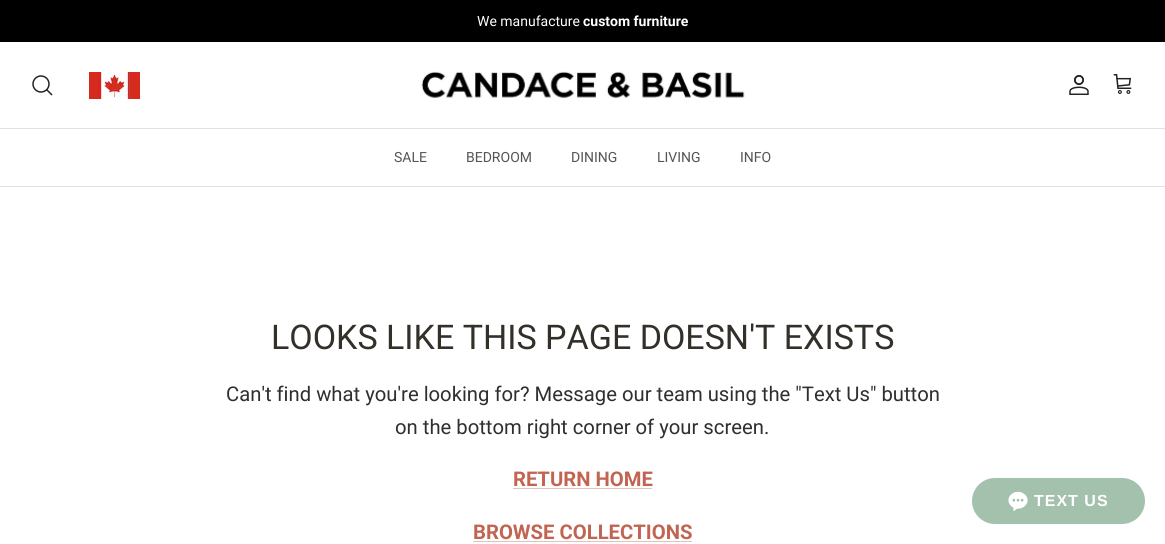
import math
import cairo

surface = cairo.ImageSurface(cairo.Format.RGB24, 1165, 544)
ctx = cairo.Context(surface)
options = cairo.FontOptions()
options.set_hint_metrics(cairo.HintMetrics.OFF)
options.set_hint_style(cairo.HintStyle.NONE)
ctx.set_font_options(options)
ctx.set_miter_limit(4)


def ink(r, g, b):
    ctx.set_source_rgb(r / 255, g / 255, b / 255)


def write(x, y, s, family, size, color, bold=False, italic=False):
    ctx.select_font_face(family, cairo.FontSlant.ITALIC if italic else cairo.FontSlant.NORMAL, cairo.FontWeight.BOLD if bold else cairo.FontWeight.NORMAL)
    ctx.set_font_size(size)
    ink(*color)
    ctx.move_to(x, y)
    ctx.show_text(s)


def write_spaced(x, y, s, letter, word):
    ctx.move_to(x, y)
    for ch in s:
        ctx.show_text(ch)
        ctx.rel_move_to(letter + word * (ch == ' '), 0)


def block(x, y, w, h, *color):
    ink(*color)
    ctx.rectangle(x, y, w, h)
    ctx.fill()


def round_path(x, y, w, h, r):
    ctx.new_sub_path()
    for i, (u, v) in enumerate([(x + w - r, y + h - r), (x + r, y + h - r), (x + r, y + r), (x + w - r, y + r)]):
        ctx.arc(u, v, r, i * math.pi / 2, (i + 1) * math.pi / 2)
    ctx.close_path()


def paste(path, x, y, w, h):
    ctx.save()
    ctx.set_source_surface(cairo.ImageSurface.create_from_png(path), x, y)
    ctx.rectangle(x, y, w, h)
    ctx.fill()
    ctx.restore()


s1 = dict(family="Roboto", size=14, color=(255, 255, 255))
s2 = dict(family="Roboto", size=14, color=(255, 255, 255), bold=True)
s3 = dict(family="Roboto", size=14, color=(85, 85, 85))
s4 = dict(family="Roboto", size=34, color=(51, 48, 41))
s5 = dict(family="Roboto", size=20.25, color=(47, 47, 47))
s6 = dict(family="Roboto", size=20.25, color=(193, 100, 82), bold=True)

ink(255, 255, 255)
ctx.paint()
block(0, 0, 1165, 42, 0, 0, 0)
write(477, 26, "We manufacture", **s1)
write(583, 26, "custom furniture", **s2)
block(0, 128, 1165, 1, 226, 226, 226)
ctx.new_path()
ctx.arc(41, 84, 8, 0, 2 * math.pi)
ink(35, 35, 35)
ctx.set_line_width(1.5)
ctx.stroke()
ctx.new_path()
ctx.move_to(47, 90)
ctx.line_to(51.5, 94.5)
ctx.set_line_cap(cairo.LineCap.SQUARE)
ctx.stroke()
paste("pic1.png", 89, 72, 51, 27)
paste("pic2.png", 421, 71, 324, 27)
paste("pic3.png", 1069, 75, 20, 20)
paste("pic4.png", 1113, 74, 19, 20)
block(0, 186, 1165, 1, 226, 226, 226)
write(394, 162, "SALE", **s3)
write(466, 162, "BEDROOM", **s3)
write(571, 162, "DINING", **s3)
write(657, 162, "LIVING", **s3)
write(740, 162, "INFO", **s3)
write(271, 349, "LOOKS LIKE THIS PAGE DOESN'T EXISTS", **s4)
write(226, 401, "Can't find what you're looking for? Message our team using the \"Text Us\" button", **s5)
write(395, 434, "on the bottom right corner of your screen.", **s5)
write(513, 486, "RETURN HOME", **s6)
block(513, 488, 139, 1, 230, 193, 186)
write(473, 539, "BROWSE COLLECTIONS", **s6)
block(473, 541, 219, 1, 230, 193, 186)
ink(163, 193, 173)
round_path(972, 478, 173, 46, 23)
ctx.fill()
paste("pic5.png", 1008, 491, 20, 20)
ctx.select_font_face("Liberation Sans", cairo.FontSlant.NORMAL, cairo.FontWeight.BOLD)
ctx.set_font_size(16)
ink(255, 255, 255)
write_spaced(1034, 506, "TEXT US", 1, 0)
surface.write_to_png("screenshot.png")
